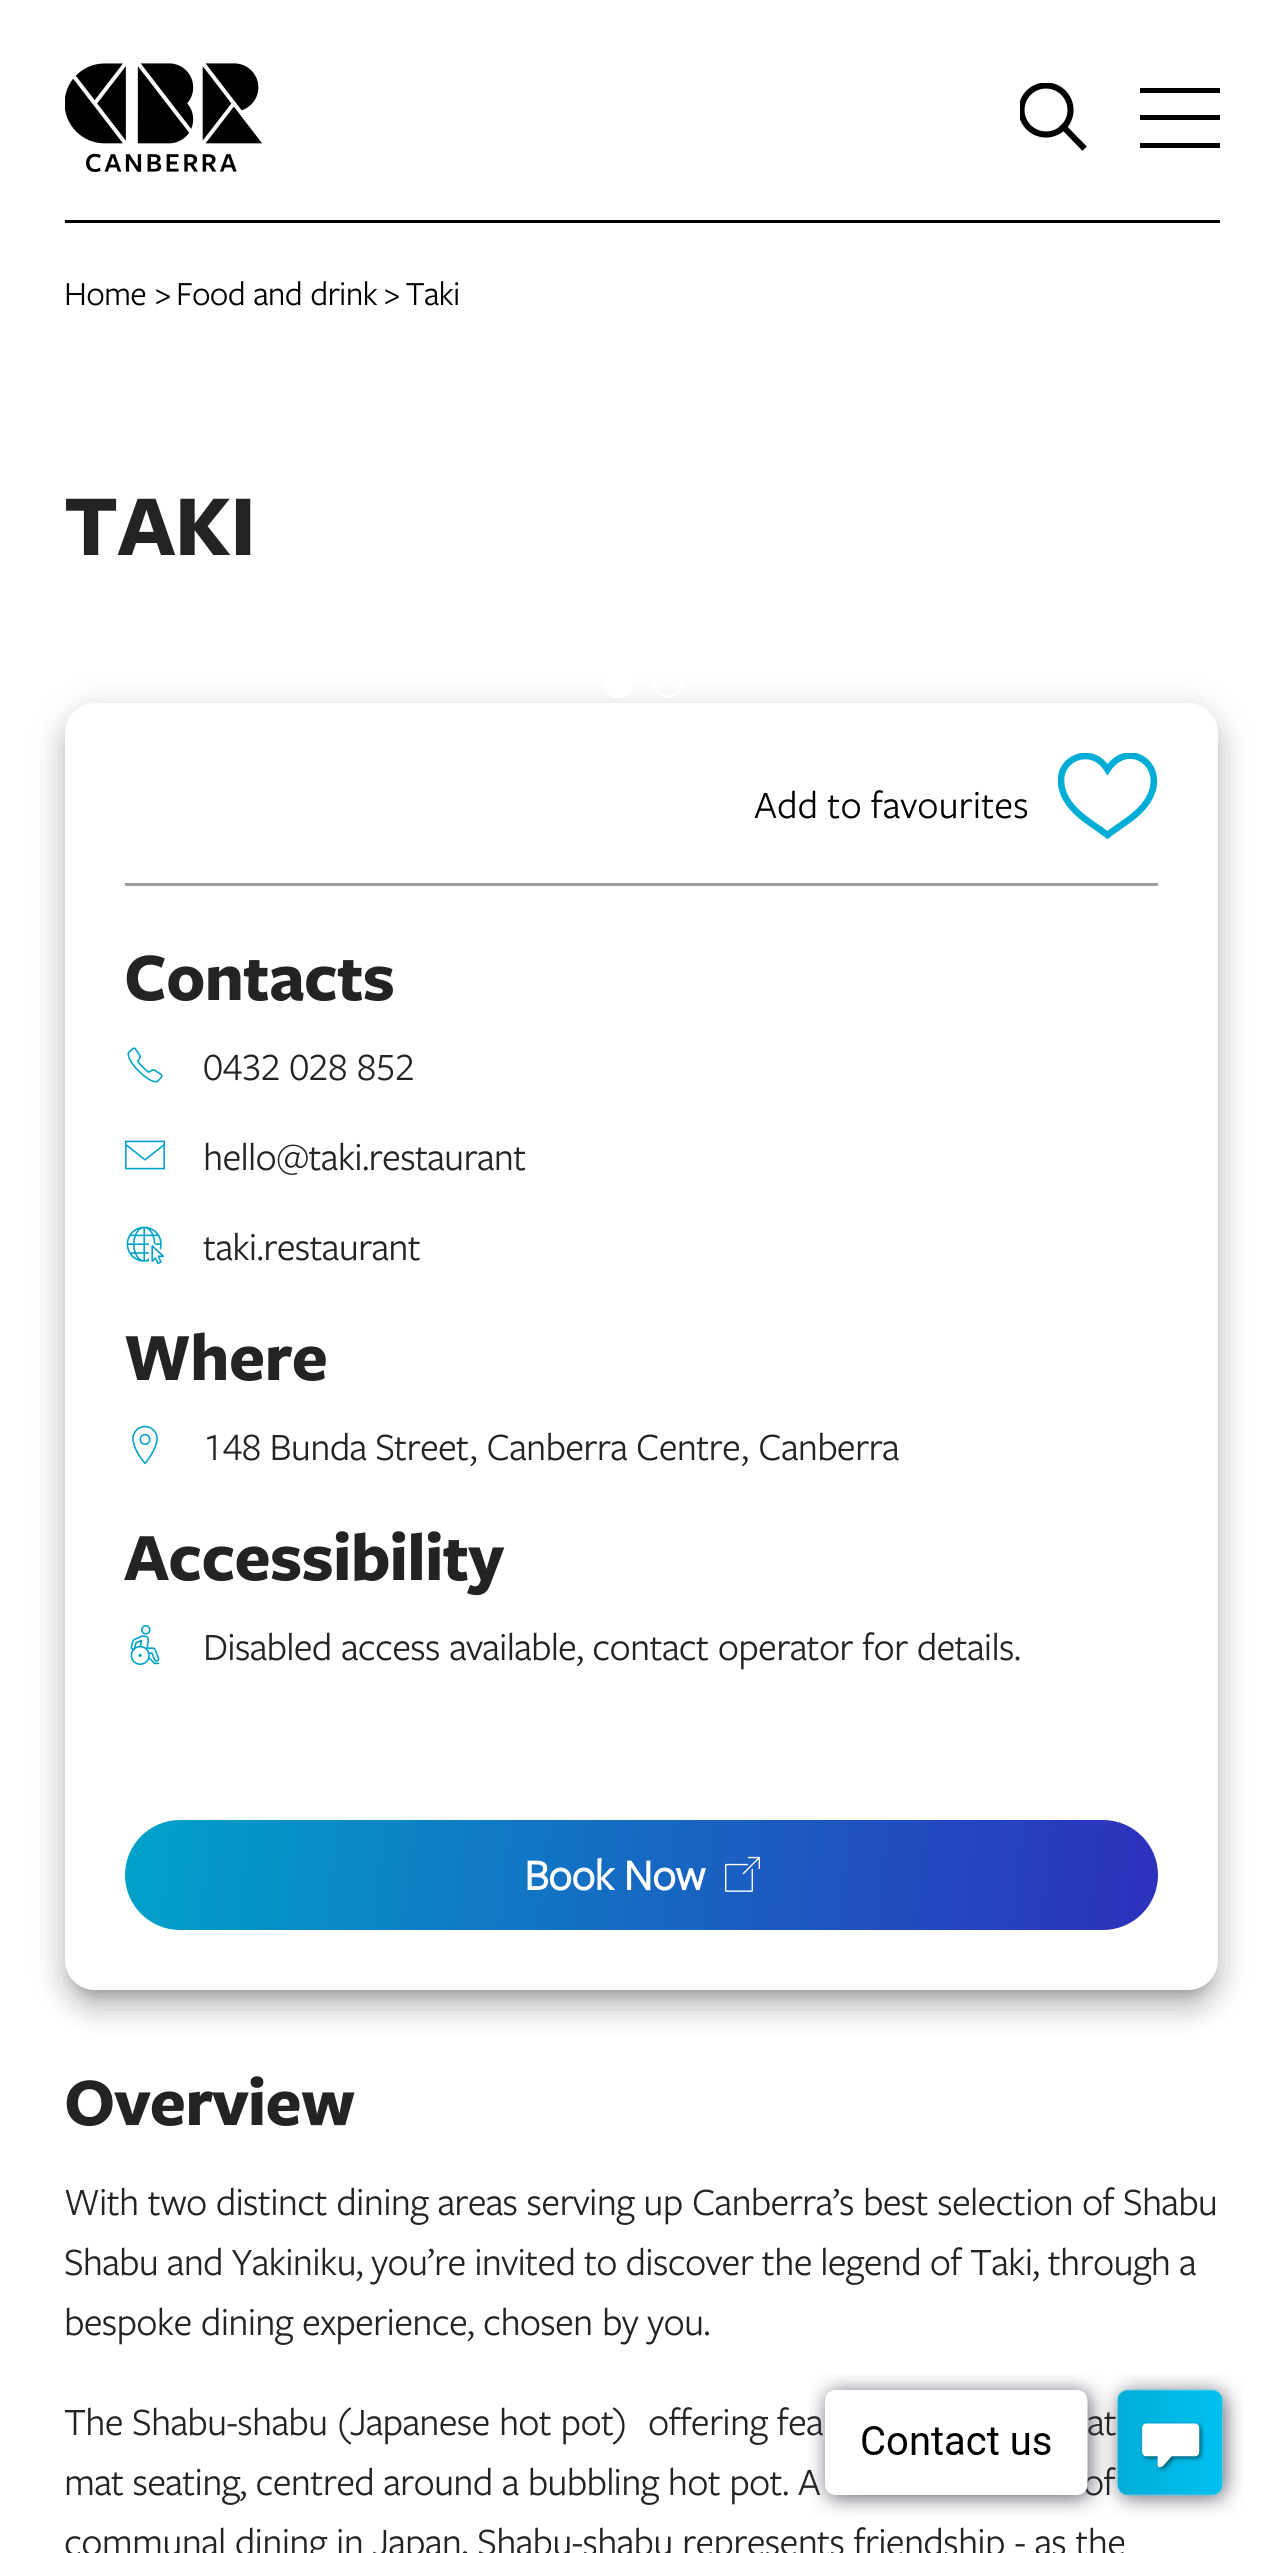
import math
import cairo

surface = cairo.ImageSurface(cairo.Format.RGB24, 1281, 2553)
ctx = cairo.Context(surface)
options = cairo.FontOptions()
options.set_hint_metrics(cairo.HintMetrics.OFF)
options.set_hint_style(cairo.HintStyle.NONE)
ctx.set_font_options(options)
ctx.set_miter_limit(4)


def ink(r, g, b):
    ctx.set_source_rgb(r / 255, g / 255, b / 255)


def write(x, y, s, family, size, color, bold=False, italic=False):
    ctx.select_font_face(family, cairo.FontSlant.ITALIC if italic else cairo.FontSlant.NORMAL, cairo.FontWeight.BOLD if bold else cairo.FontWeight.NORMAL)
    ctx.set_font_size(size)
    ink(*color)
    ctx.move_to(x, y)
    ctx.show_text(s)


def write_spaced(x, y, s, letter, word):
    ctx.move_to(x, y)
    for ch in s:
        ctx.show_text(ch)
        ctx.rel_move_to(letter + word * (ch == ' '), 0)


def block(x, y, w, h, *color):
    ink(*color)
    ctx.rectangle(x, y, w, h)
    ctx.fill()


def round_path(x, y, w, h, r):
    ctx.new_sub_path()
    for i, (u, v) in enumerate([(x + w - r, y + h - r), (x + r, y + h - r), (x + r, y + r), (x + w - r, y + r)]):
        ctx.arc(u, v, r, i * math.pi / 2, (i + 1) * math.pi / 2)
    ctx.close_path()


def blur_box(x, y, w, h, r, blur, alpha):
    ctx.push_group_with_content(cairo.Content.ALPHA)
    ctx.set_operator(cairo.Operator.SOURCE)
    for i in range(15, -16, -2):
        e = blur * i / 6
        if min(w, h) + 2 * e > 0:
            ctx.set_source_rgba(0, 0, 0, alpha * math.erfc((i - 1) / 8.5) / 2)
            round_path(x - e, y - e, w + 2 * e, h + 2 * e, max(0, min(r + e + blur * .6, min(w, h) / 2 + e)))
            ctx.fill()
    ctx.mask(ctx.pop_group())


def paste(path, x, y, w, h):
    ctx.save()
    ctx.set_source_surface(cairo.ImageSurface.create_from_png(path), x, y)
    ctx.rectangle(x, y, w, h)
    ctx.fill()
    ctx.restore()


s1 = dict(family="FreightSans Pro", size=40, color=(0, 0, 0))

ink(255, 255, 255)
ctx.paint()
paste("pic1.png", 65, 63, 197, 109)
ctx.new_path()
ctx.move_to(1082.5, 146.5)
ctx.line_to(1063.5, 127)
ink(0, 0, 0)
ctx.set_line_width(6.1)
ctx.set_line_cap(cairo.LineCap.SQUARE)
ctx.stroke()
ctx.save()
ctx.rectangle(1020, 83, 70, 70)
ctx.clip()
ctx.arc(1046, 110, 24.5, 0, 2 * math.pi)
ctx.set_line_cap(cairo.LineCap.BUTT)
ctx.stroke()
ctx.restore()
block(1140, 88, 80, 5, 0, 0, 0)
block(1140, 115, 80, 5, 0, 0, 0)
block(1140, 143, 80, 5, 0, 0, 0)
block(65, 220, 1155, 3, 0, 0, 0)
ctx.select_font_face("FreightSans Pro")
ctx.set_font_size(35)
write_spaced(64, 305, "Home", -0.75, 0)
write_spaced(155, 305, ">", -0.75, 0)
write_spaced(176, 305, "Food and drink", -0.75, 1)
write_spaced(384, 305, "> Taki", -0.75, -1)
ctx.select_font_face("FreightSans Pro", cairo.FontSlant.NORMAL, cairo.FontWeight.BOLD)
ctx.set_font_size(90)
ink(35, 35, 35)
write_spaced(64, 555, "TAKI", -0.75, 0)
ink(0, 0, 0)
blur_box(60, 705, 1163, 1298, 35, 17.5, 0.12)
blur_box(63, 720, 1157, 1293, 33, 12.5, 0.14)
ink(255, 255, 255)
ctx.arc(618, 683, 13.5, 0, 2 * math.pi)
ctx.fill_preserve()
ctx.set_line_width(3)
ctx.set_line_cap(cairo.LineCap.BUTT)
ctx.stroke()
ctx.arc(668, 683, 13.5, 0, 2 * math.pi)
ctx.stroke()
ink(0, 0, 0)
blur_box(73, 723, 1137, 1272, 23, 6, 0.2)
ink(255, 255, 255)
round_path(65, 703, 1153, 1287, 30)
ctx.fill()
block(125, 883, 1033, 3, 158, 158, 158)
write(754, 818, "Add to favourites", **s1)
ctx.save()
ctx.rectangle(1058, 753, 100, 87)
ctx.clip()
ctx.new_path()
ctx.move_to(1085.5, 756)
ctx.curve_to(1095, 756, 1102.5, 761.5, 1107.5, 769.5)
ctx.curve_to(1130, 735.5, 1174.5, 770, 1143, 807)
ctx.curve_to(1133, 818.5, 1119.5, 825.5, 1107.5, 835)
ctx.curve_to(1093, 823.5, 1061, 808.5, 1061, 780)
ctx.curve_to(1061, 766.5, 1072, 756, 1085.5, 756)
ctx.close_path()
ink(0, 173, 215)
ctx.set_line_width(6.6)
ctx.stroke()
ctx.restore()
ctx.select_font_face("FreightSans Pro", cairo.FontSlant.NORMAL, cairo.FontWeight.BOLD)
ctx.set_font_size(70)
ink(35, 35, 35)
write_spaced(124, 1000, "Contacts", -0.75, 0)
paste("pic2.png", 127, 1047, 36, 36)
ctx.select_font_face("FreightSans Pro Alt")
ctx.set_font_size(40)
write_spaced(203, 1080, "0432 028 852", -0.75, 1)
paste("pic3.png", 125, 1140, 40, 30)
ctx.select_font_face("FreightSans Pro")
write_spaced(203, 1170, "hello@taki.restaurant", -0.75, 0)
paste("pic4.png", 126, 1226, 39, 39)
write_spaced(203, 1260, "taki.restaurant", -0.75, 0)
ctx.select_font_face("FreightSans Pro", cairo.FontSlant.NORMAL, cairo.FontWeight.BOLD)
ctx.set_font_size(70)
write_spaced(124, 1380, "Where", -0.75, 0)
paste("pic5.png", 132, 1425, 26, 40)
ctx.select_font_face("FreightSans Pro Alt")
ctx.set_font_size(40)
write_spaced(203, 1460, "148 Bunda Street, Canberra Centre, Canberra", -0.75, 0.5)
ctx.select_font_face("FreightSans Pro", cairo.FontSlant.NORMAL, cairo.FontWeight.BOLD)
ctx.set_font_size(70)
write_spaced(124, 1580, "Accessibility", -0.75, 0)
paste("pic6.png", 130, 1625, 30, 40)
ctx.select_font_face("FreightSans Pro")
ctx.set_font_size(40)
write_spaced(203, 1660, "Disabled access available, contact operator for details.", -0.75, 1)
gradient = cairo.LinearGradient(126, 1812, 1156, 1938)
gradient.add_color_stop_rgba(0, 0, 0.635, 0.788, 1)
gradient.add_color_stop_rgba(0.98, 0.169, 0.196, 0.737, 1)
ctx.set_source(gradient)
round_path(125, 1820, 1033, 110, 55)
ctx.fill()
ctx.select_font_face("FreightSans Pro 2", cairo.FontSlant.NORMAL, cairo.FontWeight.BOLD)
ctx.set_font_size(45)
ink(255, 255, 255)
write_spaced(524, 1890, "Book Now", -0.75, 1)
paste("pic7.png", 725, 1856, 35, 36)
ctx.select_font_face("FreightSans Pro", cairo.FontSlant.NORMAL, cairo.FontWeight.BOLD)
ctx.set_font_size(70)
ink(35, 35, 35)
write_spaced(64, 2125, "Overview", -0.75, 0)
ctx.select_font_face("FreightSans Pro")
ctx.set_font_size(40)
write_spaced(64, 2215, "With two distinct dining areas serving up Canberra’s best selection of Shabu", -0.75, 0.9)
write_spaced(64, 2275, "Shabu and Yakiniku, you’re invited to discover the legend of Taki, through a", -0.75, 0.25)
write_spaced(64, 2335, "bespoke dining experience, chosen by you.", -0.75, 1)
write_spaced(64, 2435, "The Shabu-shabu (Japanese hot pot)", -0.75, 1)
write_spaced(648, 2435, "offering fea", -0.75, 1)
write_spaced(1087, 2435, "at", -0.75, 1)
write_spaced(64, 2495, "mat seating, centred around a bubbling hot pot. A", -0.75, 0.75)
write_spaced(1083, 2495, "of", -0.75, 0.75)
write_spaced(64, 2555, "communal dining in Japan, Shabu-shabu represents friendship - as the", -0.75, 1)
paste("pic8.png", 809, 2374, 434, 142)
surface.write_to_png("screenshot.png")
